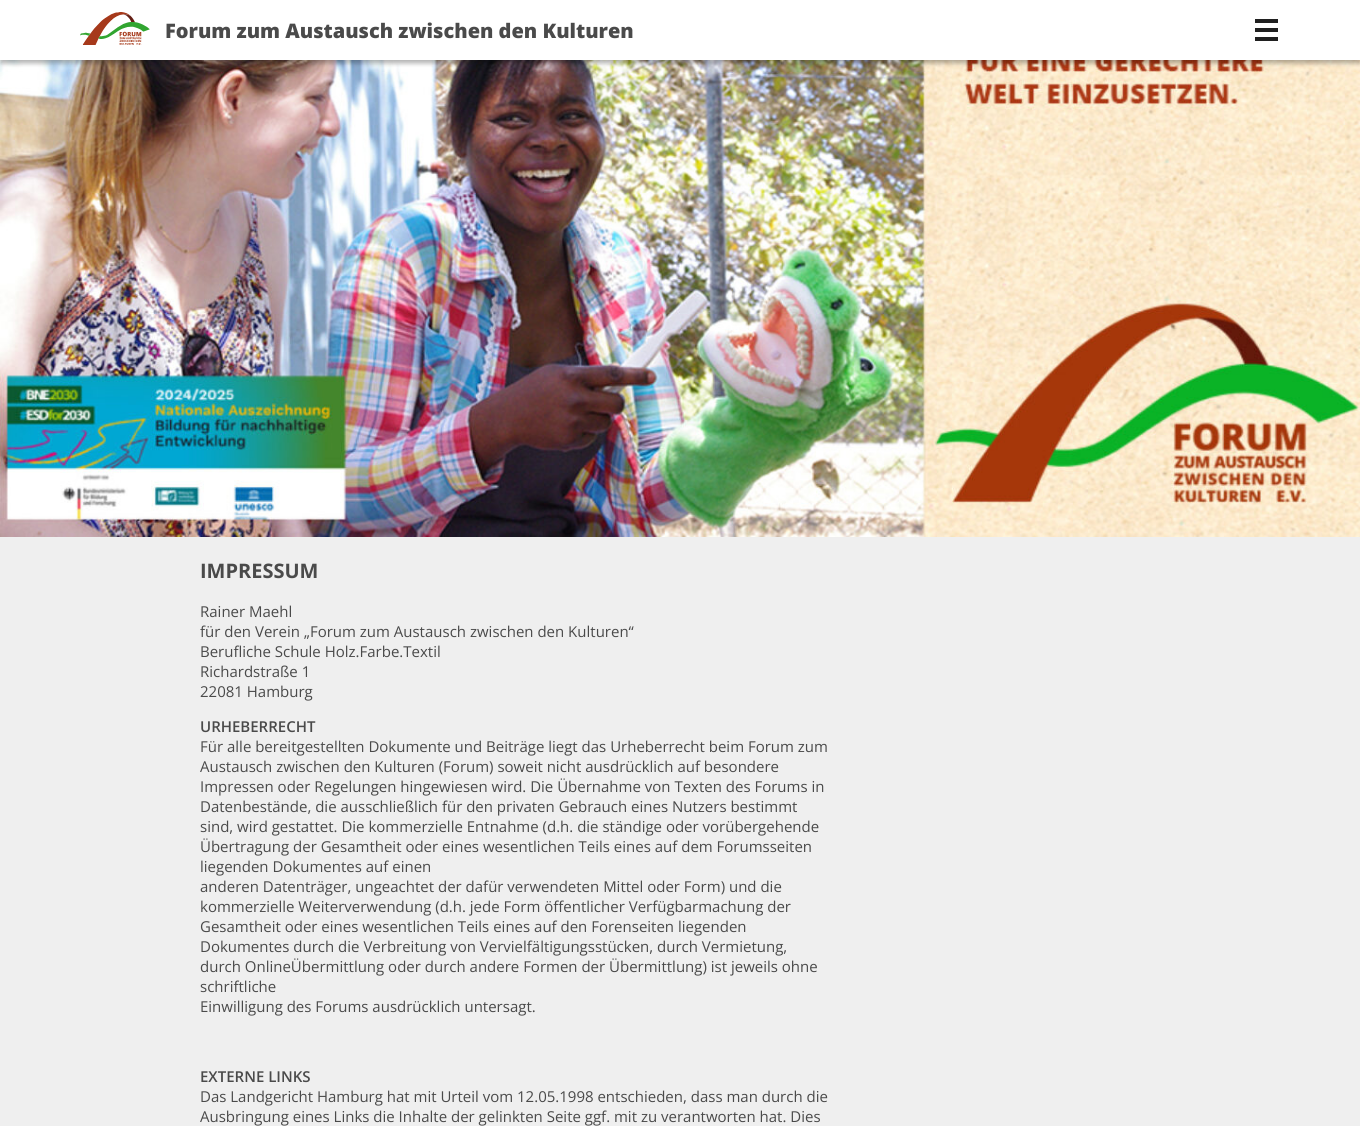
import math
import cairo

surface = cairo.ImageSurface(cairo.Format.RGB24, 1360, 1126)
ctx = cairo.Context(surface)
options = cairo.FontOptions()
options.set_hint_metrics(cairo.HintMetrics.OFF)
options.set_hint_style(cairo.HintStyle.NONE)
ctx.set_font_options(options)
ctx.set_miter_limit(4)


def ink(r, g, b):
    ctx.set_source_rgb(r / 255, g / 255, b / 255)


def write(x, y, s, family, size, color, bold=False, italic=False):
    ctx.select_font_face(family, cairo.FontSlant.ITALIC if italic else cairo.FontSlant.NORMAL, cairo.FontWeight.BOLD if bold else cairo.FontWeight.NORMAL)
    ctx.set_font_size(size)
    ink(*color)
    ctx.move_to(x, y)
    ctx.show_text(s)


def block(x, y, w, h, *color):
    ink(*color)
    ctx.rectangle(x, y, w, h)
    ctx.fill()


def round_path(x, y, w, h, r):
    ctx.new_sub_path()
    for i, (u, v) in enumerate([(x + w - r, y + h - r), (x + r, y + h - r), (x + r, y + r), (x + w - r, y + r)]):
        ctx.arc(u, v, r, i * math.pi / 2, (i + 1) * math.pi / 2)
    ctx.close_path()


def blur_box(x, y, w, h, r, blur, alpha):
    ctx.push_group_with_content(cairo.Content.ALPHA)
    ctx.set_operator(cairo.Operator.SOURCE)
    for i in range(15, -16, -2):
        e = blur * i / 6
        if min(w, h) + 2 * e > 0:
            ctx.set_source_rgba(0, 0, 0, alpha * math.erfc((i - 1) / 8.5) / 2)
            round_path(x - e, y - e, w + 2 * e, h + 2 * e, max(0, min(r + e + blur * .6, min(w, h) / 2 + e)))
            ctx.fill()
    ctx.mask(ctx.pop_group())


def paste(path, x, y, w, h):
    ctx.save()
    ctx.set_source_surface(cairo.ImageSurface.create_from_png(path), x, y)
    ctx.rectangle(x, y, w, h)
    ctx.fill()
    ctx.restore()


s1 = dict(family="Open Sans ExtraBold", size=20, color=(74, 74, 74))
s2 = dict(family="Open Sans", size=20, color=(74, 74, 74), bold=True)
s3 = dict(family="Open Sans", size=15, color=(74, 74, 74))
s4 = dict(family="Open Sans SemiBold", size=15, color=(74, 74, 74))

ink(239, 239, 239)
ctx.paint()
paste("pic2.png", 0, 60, 1360, 477)
ink(0, 0, 0)
blur_box(0, 4, 1360, 60, 0, 2, 0.24)
blur_box(0, 0, 1360, 60, 0, 2, 0.12)
block(0, 0, 1360, 60, 255, 255, 255)
paste("pic1.png", 80, 12, 70, 33)
write(165, 38, "Forum zum Austausch zwischen den Kulturen", **s1)
block(1255, 19, 23, 4, 32, 32, 32)
block(1255, 28, 23, 4, 32, 32, 32)
block(1255, 37, 23, 4, 32, 32, 32)
write(200, 578, "IMPRESSUM", **s2)
write(200, 617, "Rainer Maehl", **s3)
write(200, 637, "für den Verein „Forum zum Austausch zwischen den Kulturen“", **s3)
write(200, 657, "Berufliche Schule Holz.Farbe.Textil", **s3)
write(200, 677, "Richardstraße 1", **s3)
write(200, 697, "22081 Hamburg", **s3)
write(200, 732, "URHEBERRECHT", **s4)
write(200, 752, "Für alle bereitgestellten Dokumente und Beiträge liegt das Urheberrecht beim Forum zum", **s3)
write(200, 772, "Austausch zwischen den Kulturen (Forum) soweit nicht ausdrücklich auf besondere", **s3)
write(200, 792, "Impressen oder Regelungen hingewiesen wird. Die Übernahme von Texten des Forums in", **s3)
write(200, 812, "Datenbestände, die ausschließlich für den privaten Gebrauch eines Nutzers bestimmt", **s3)
write(200, 832, "sind, wird gestattet. Die kommerzielle Entnahme (d.h. die ständige oder vorübergehende", **s3)
write(200, 852, "Übertragung der Gesamtheit oder eines wesentlichen Teils eines auf dem Forumsseiten", **s3)
write(200, 872, "liegenden Dokumentes auf einen", **s3)
write(200, 892, "anderen Datenträger, ungeachtet der dafür verwendeten Mittel oder Form) und die", **s3)
write(200, 912, "kommerzielle Weiterverwendung (d.h. jede Form öffentlicher Verfügbarmachung der", **s3)
write(200, 932, "Gesamtheit oder eines wesentlichen Teils eines auf den Forenseiten liegenden", **s3)
write(200, 952, "Dokumentes durch die Verbreitung von Vervielfältigungsstücken, durch Vermietung,", **s3)
write(200, 972, "durch OnlineÜbermittlung oder durch andere Formen der Übermittlung) ist jeweils ohne", **s3)
write(200, 992, "schriftliche", **s3)
write(200, 1012, "Einwilligung des Forums ausdrücklich untersagt.", **s3)
write(200, 1082, "EXTERNE LINKS", **s4)
write(200, 1102, "Das Landgericht Hamburg hat mit Urteil vom 12.05.1998 entschieden, dass man durch die", **s3)
write(200, 1122, "Ausbringung eines Links die Inhalte der gelinkten Seite ggf. mit zu verantworten hat. Dies", **s3)
surface.write_to_png("screenshot.png")
